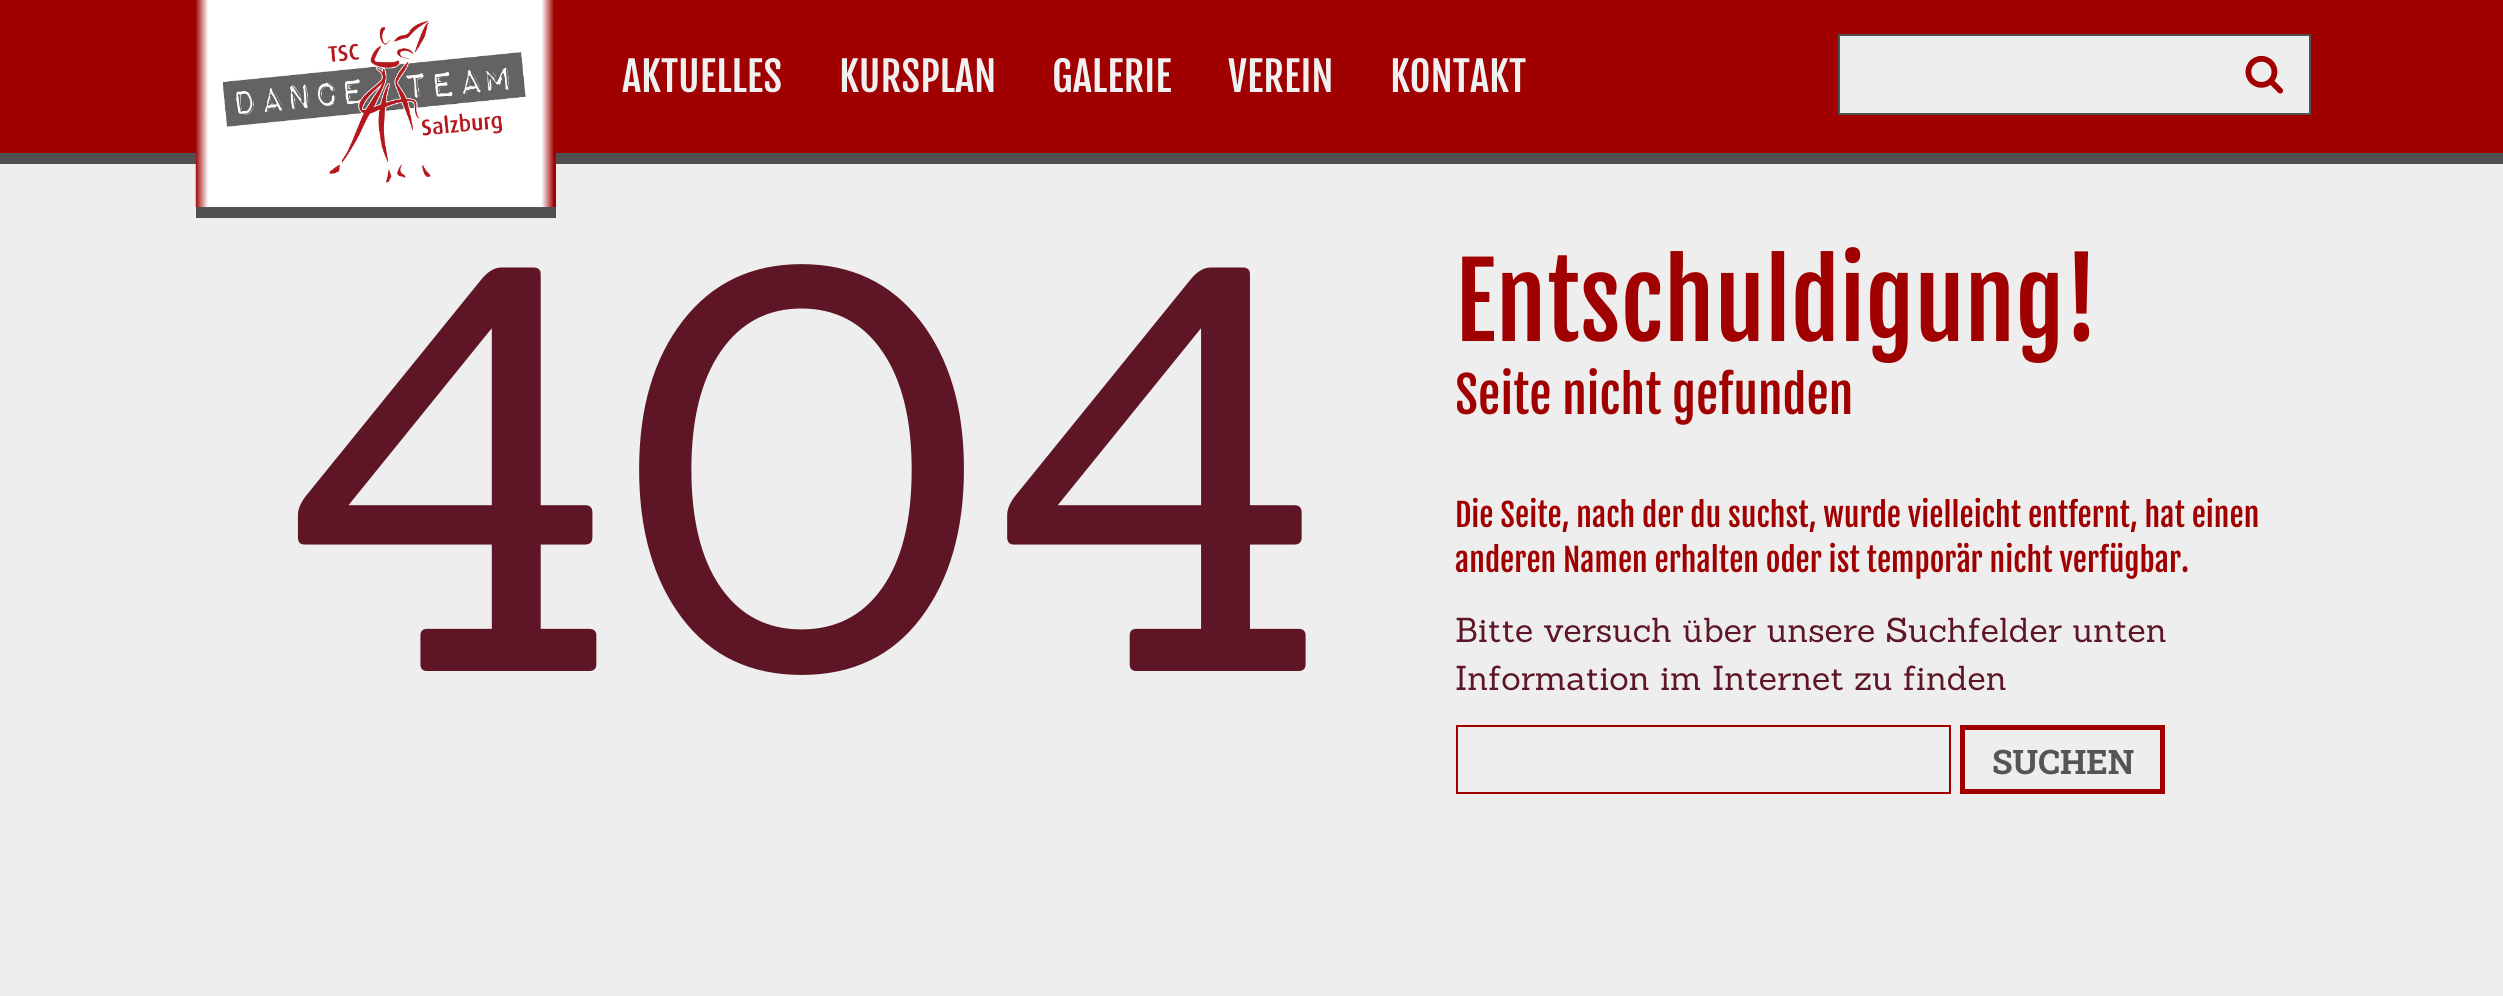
import math
import cairo

surface = cairo.ImageSurface(cairo.Format.RGB24, 2503, 996)
ctx = cairo.Context(surface)
options = cairo.FontOptions()
options.set_hint_metrics(cairo.HintMetrics.OFF)
options.set_hint_style(cairo.HintStyle.NONE)
ctx.set_font_options(options)
ctx.set_miter_limit(4)


def ink(r, g, b):
    ctx.set_source_rgb(r / 255, g / 255, b / 255)


def write(x, y, s, family, size, color, bold=False, italic=False):
    ctx.select_font_face(family, cairo.FontSlant.ITALIC if italic else cairo.FontSlant.NORMAL, cairo.FontWeight.BOLD if bold else cairo.FontWeight.NORMAL)
    ctx.set_font_size(size)
    ink(*color)
    ctx.move_to(x, y)
    ctx.show_text(s)


def block(x, y, w, h, *color):
    ink(*color)
    ctx.rectangle(x, y, w, h)
    ctx.fill()


def paste(path, x, y, w, h):
    ctx.save()
    ctx.set_source_surface(cairo.ImageSurface.create_from_png(path), x, y)
    ctx.rectangle(x, y, w, h)
    ctx.fill()
    ctx.restore()


s1 = dict(family="Fjalla One", size=40.5, color=(241, 241, 241))
s2 = dict(family="Sanchez", size=562, color=(94, 22, 38))
s3 = dict(family="Fjalla One", size=101.25, color=(160, 0, 0))
s4 = dict(family="Fjalla One", size=49.5, color=(160, 0, 0))
s5 = dict(family="Fjalla One", size=31.5, color=(160, 0, 0))
s6 = dict(family="Sanchez", size=33.75, color=(94, 22, 38))
s7 = dict(family="Roboto Slab", size=33.75, color=(85, 85, 85), bold=True)

ink(238, 238, 238)
ctx.paint()
block(553, 0, 1950, 153, 160, 0, 0)
block(556, 153, 1947, 11, 80, 80, 80)
block(0, 0, 196, 153, 160, 0, 0)
block(0, 153, 196, 11, 80, 80, 80)
block(553, 153, 3, 54, 160, 0, 0)
block(196, 207, 360, 11, 80, 80, 80)
paste("pic1.png", 195, 0, 359, 208)
write(622, 92, "AKTUELLES", **s1)
write(839, 92, "KURSPLAN", **s1)
write(1052, 92, "GALERIE", **s1)
write(1228, 92, "VEREIN", **s1)
write(1390, 92, "KONTAKT", **s1)
ink(238, 238, 238)
ctx.rectangle(1839, 35, 471, 79)
ctx.fill_preserve()
ink(80, 80, 80)
ctx.stroke()
paste("pic2.png", 2245, 55, 39, 39)
write(276, 671, "404", **s2)
write(1455, 341, "Entschuldigung!", **s3)
write(1455, 414, "Seite nicht gefunden", **s4)
write(1455, 527, "Die Seite, nach der du suchst, wurde vielleicht entfernt, hat einen", **s5)
write(1455, 572, "anderen Namen erhalten oder ist temporär nicht verfügbar.", **s5)
write(1455, 642, "Bitte versuch über unsere Suchfelder unten", **s6)
write(1455, 690, "Information im Internet zu finden", **s6)
ctx.rectangle(1457, 726, 493, 67)
ink(160, 0, 0)
ctx.stroke()
ctx.rectangle(1962.5, 727.5, 200, 64)
ctx.set_line_width(5)
ctx.stroke()
write(1992, 774, "SUCHEN", **s7)
surface.write_to_png("screenshot.png")
